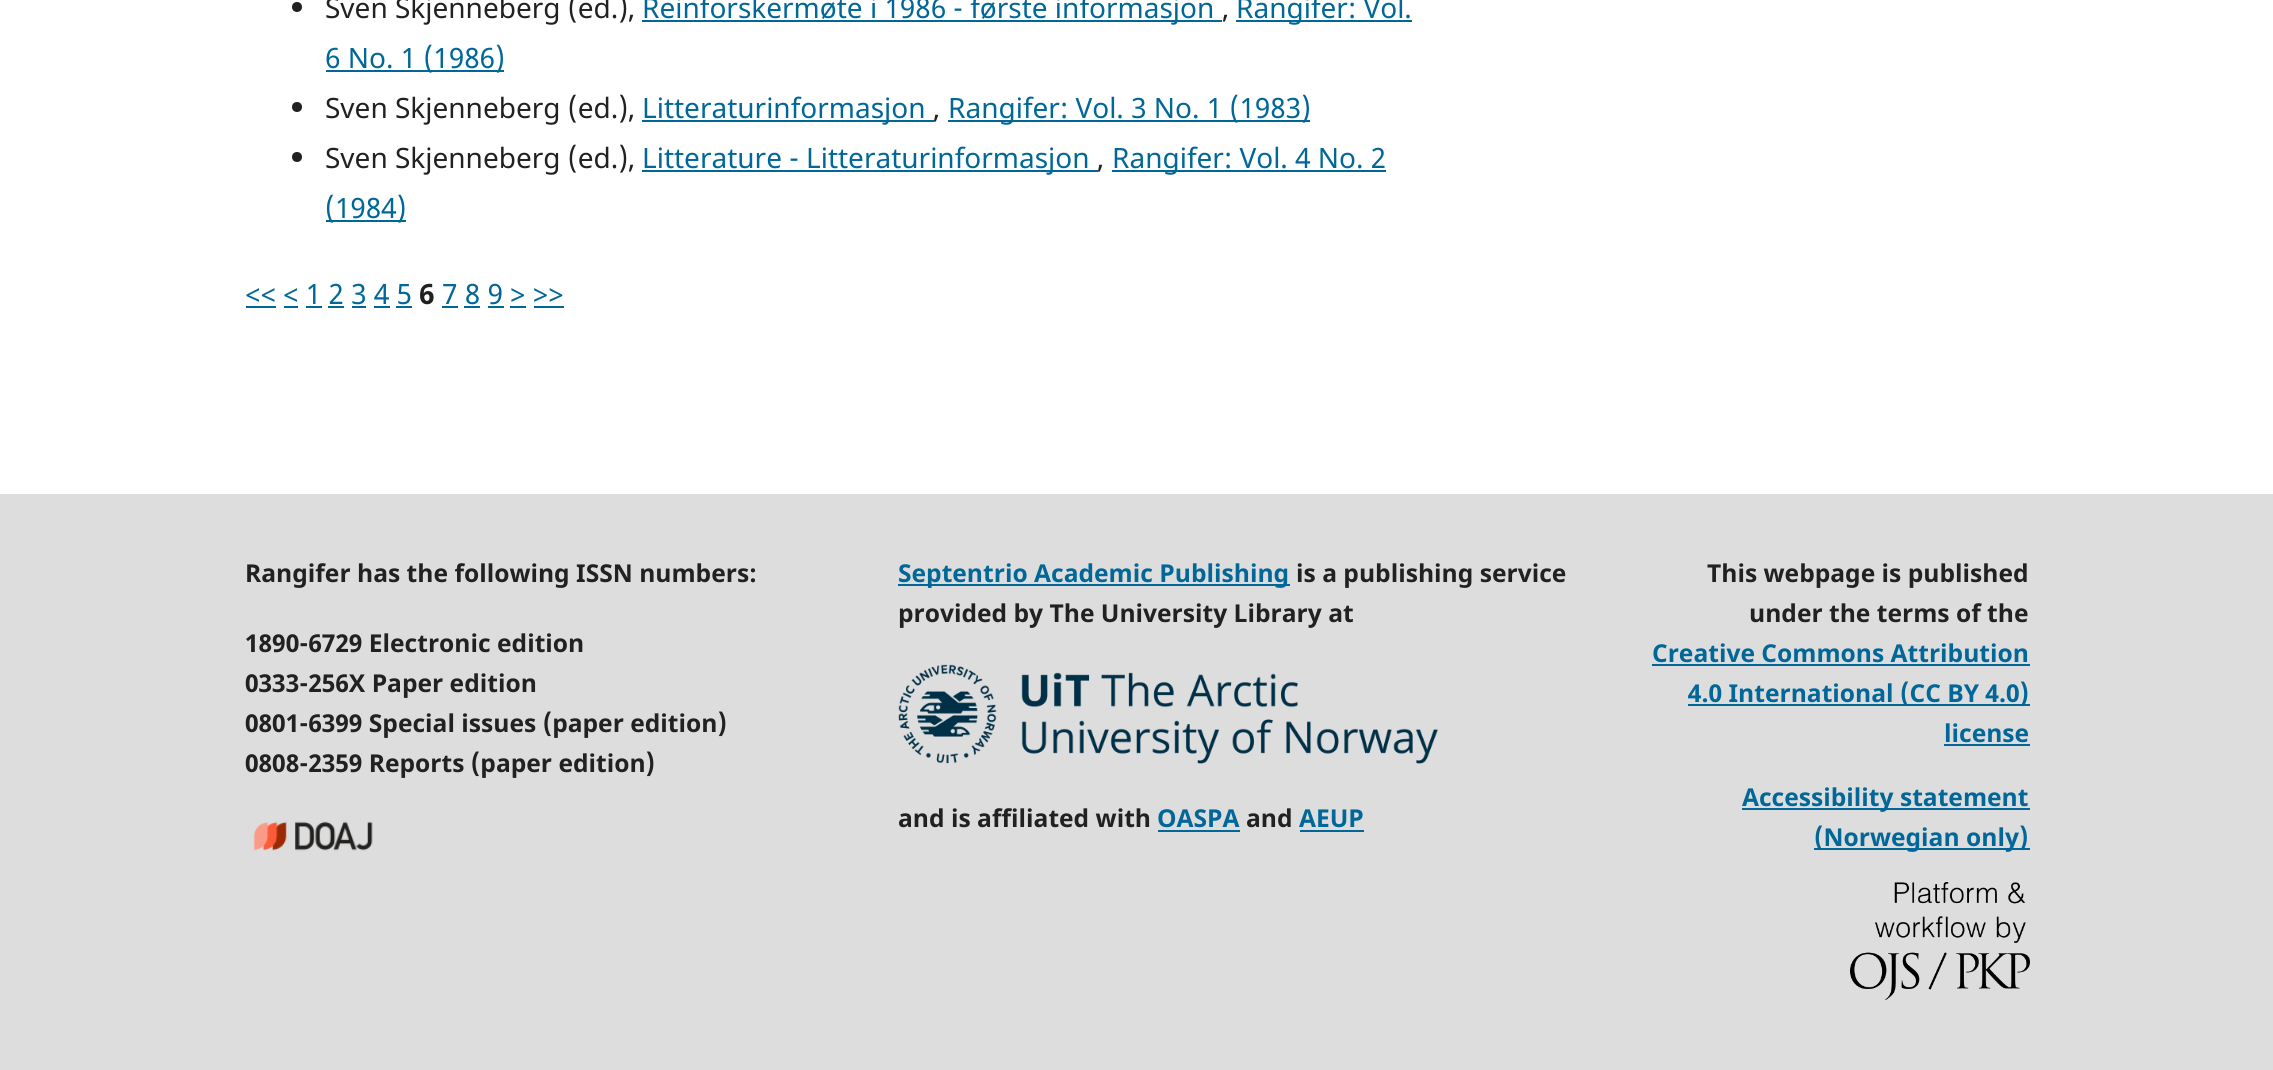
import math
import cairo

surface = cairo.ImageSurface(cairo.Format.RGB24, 2273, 1070)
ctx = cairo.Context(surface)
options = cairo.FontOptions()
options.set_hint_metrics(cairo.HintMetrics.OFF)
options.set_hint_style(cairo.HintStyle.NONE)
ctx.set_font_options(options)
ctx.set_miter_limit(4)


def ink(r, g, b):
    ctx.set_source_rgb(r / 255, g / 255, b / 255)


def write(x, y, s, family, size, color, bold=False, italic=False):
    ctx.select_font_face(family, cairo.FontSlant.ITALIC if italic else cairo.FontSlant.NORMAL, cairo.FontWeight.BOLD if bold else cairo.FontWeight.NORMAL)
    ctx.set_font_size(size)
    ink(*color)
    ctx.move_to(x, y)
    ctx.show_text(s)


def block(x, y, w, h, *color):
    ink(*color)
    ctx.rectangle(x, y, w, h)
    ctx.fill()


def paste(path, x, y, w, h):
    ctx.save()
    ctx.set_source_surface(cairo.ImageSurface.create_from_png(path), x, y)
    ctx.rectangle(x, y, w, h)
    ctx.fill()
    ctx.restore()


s1 = dict(family="Noto Sans", size=28, color=(33, 33, 33))
s2 = dict(family="Noto Sans", size=28, color=(0, 103, 152))
s3 = dict(family="Noto Sans", size=28, color=(33, 33, 33), bold=True)
s4 = dict(family="Noto Sans", size=24.6, color=(33, 33, 33), bold=True)
s5 = dict(family="Noto Sans", size=24.6, color=(0, 103, 152), bold=True)

ink(255, 255, 255)
ctx.paint()
ink(33, 33, 33)
ctx.arc(297, 7, 5, 0, 2 * math.pi)
ctx.fill()
write(325, 18, "Sven Skjenneberg (ed.),", **s1)
block(642, 20, 580, 2, 0, 103, 152)
write(642, 18, "Reinforskermøte i 1986 - første informasjon", **s2)
block(1236, 20, 176, 2, 0, 103, 152)
write(1236, 18, "Rangifer: Vol.", **s2)
write(1222, 18, ",", **s1)
block(326, 70, 178, 2, 0, 103, 152)
write(325, 68, "6 No. 1 (1986)", **s2)
ink(33, 33, 33)
ctx.new_path()
ctx.arc(297, 107, 5, 0, 2 * math.pi)
ctx.fill()
write(325, 118, "Sven Skjenneberg (ed.),", **s1)
block(642, 120, 292, 2, 0, 103, 152)
write(642, 118, "Litteraturinformasjon", **s2)
block(948, 120, 362, 2, 0, 103, 152)
write(948, 118, "Rangifer: Vol. 3 No. 1 (1983)", **s2)
write(933, 118, ",", **s1)
ctx.new_path()
ctx.arc(297, 157, 5, 0, 2 * math.pi)
ctx.fill()
write(325, 168, "Sven Skjenneberg (ed.),", **s1)
block(642, 170, 456, 2, 0, 103, 152)
write(642, 168, "Litterature - Litteraturinformasjon", **s2)
block(1112, 170, 274, 2, 0, 103, 152)
write(1112, 168, "Rangifer: Vol. 4 No. 2", **s2)
write(1097, 168, ",", **s1)
block(326, 220, 80, 2, 0, 103, 152)
write(325, 218, "(1984)", **s2)
write(245, 304, "<< < 1 2 3 4 5", **s2)
block(246, 306, 30, 2, 0, 103, 152)
write(419, 304, "6", **s3)
write(442, 304, "7 8 9 > >>", **s2)
block(442, 306, 16, 2, 0, 103, 152)
block(284, 306, 14, 2, 0, 103, 152)
block(306, 306, 16, 2, 0, 103, 152)
block(328, 306, 16, 2, 0, 103, 152)
block(352, 306, 14, 2, 0, 103, 152)
block(374, 306, 16, 2, 0, 103, 152)
block(396, 306, 16, 2, 0, 103, 152)
block(464, 306, 16, 2, 0, 103, 152)
block(488, 306, 16, 2, 0, 103, 152)
block(510, 306, 16, 2, 0, 103, 152)
block(534, 306, 30, 2, 0, 103, 152)
block(0, 494, 2273, 576, 221, 221, 221)
write(245, 582, "Rangifer has the following ISSN numbers:", **s4)
write(245, 652, "1890-6729 Electronic edition", **s4)
write(245, 692, "0333-256X Paper edition", **s4)
write(245, 732, "0801-6399 Special issues (paper edition)", **s4)
write(245, 772, "0808-2359 Reports (paper edition)", **s4)
paste("pic1.png", 253, 821, 120, 30)
block(898, 584, 392, 2, 0, 103, 152)
write(898, 582, "Septentrio Academic Publishing", **s5)
write(1296, 582, "is a publishing service", **s4)
write(898, 622, "provided by The University Library at", **s4)
paste("pic2.png", 898, 664, 540, 100)
write(898, 827, "and is affiliated with", **s4)
write(1157, 827, "OASPA", **s5)
block(1158, 830, 82, 2, 0, 103, 152)
write(1246, 827, "and", **s4)
write(1299, 827, "AEUP", **s5)
block(1300, 830, 64, 2, 0, 103, 152)
write(1707, 582, "This webpage is published", **s4)
write(1749, 622, "under the terms of the", **s4)
write(1652, 662, "Creative Commons Attribution", **s5)
block(1652, 664, 378, 2, 0, 103, 152)
block(1688, 704, 342, 2, 0, 103, 152)
write(1688, 702, "4.0 International (CC BY 4.0)", **s5)
write(1944, 742, "license", **s5)
block(1944, 744, 86, 2, 0, 103, 152)
block(1742, 808, 288, 2, 0, 103, 152)
write(1742, 806, "Accessibility statement", **s5)
block(1814, 848, 216, 2, 0, 103, 152)
write(1814, 846, "(Norwegian only)", **s5)
paste("pic3.png", 1850, 882, 180, 118)
surface.write_to_png("screenshot.png")
